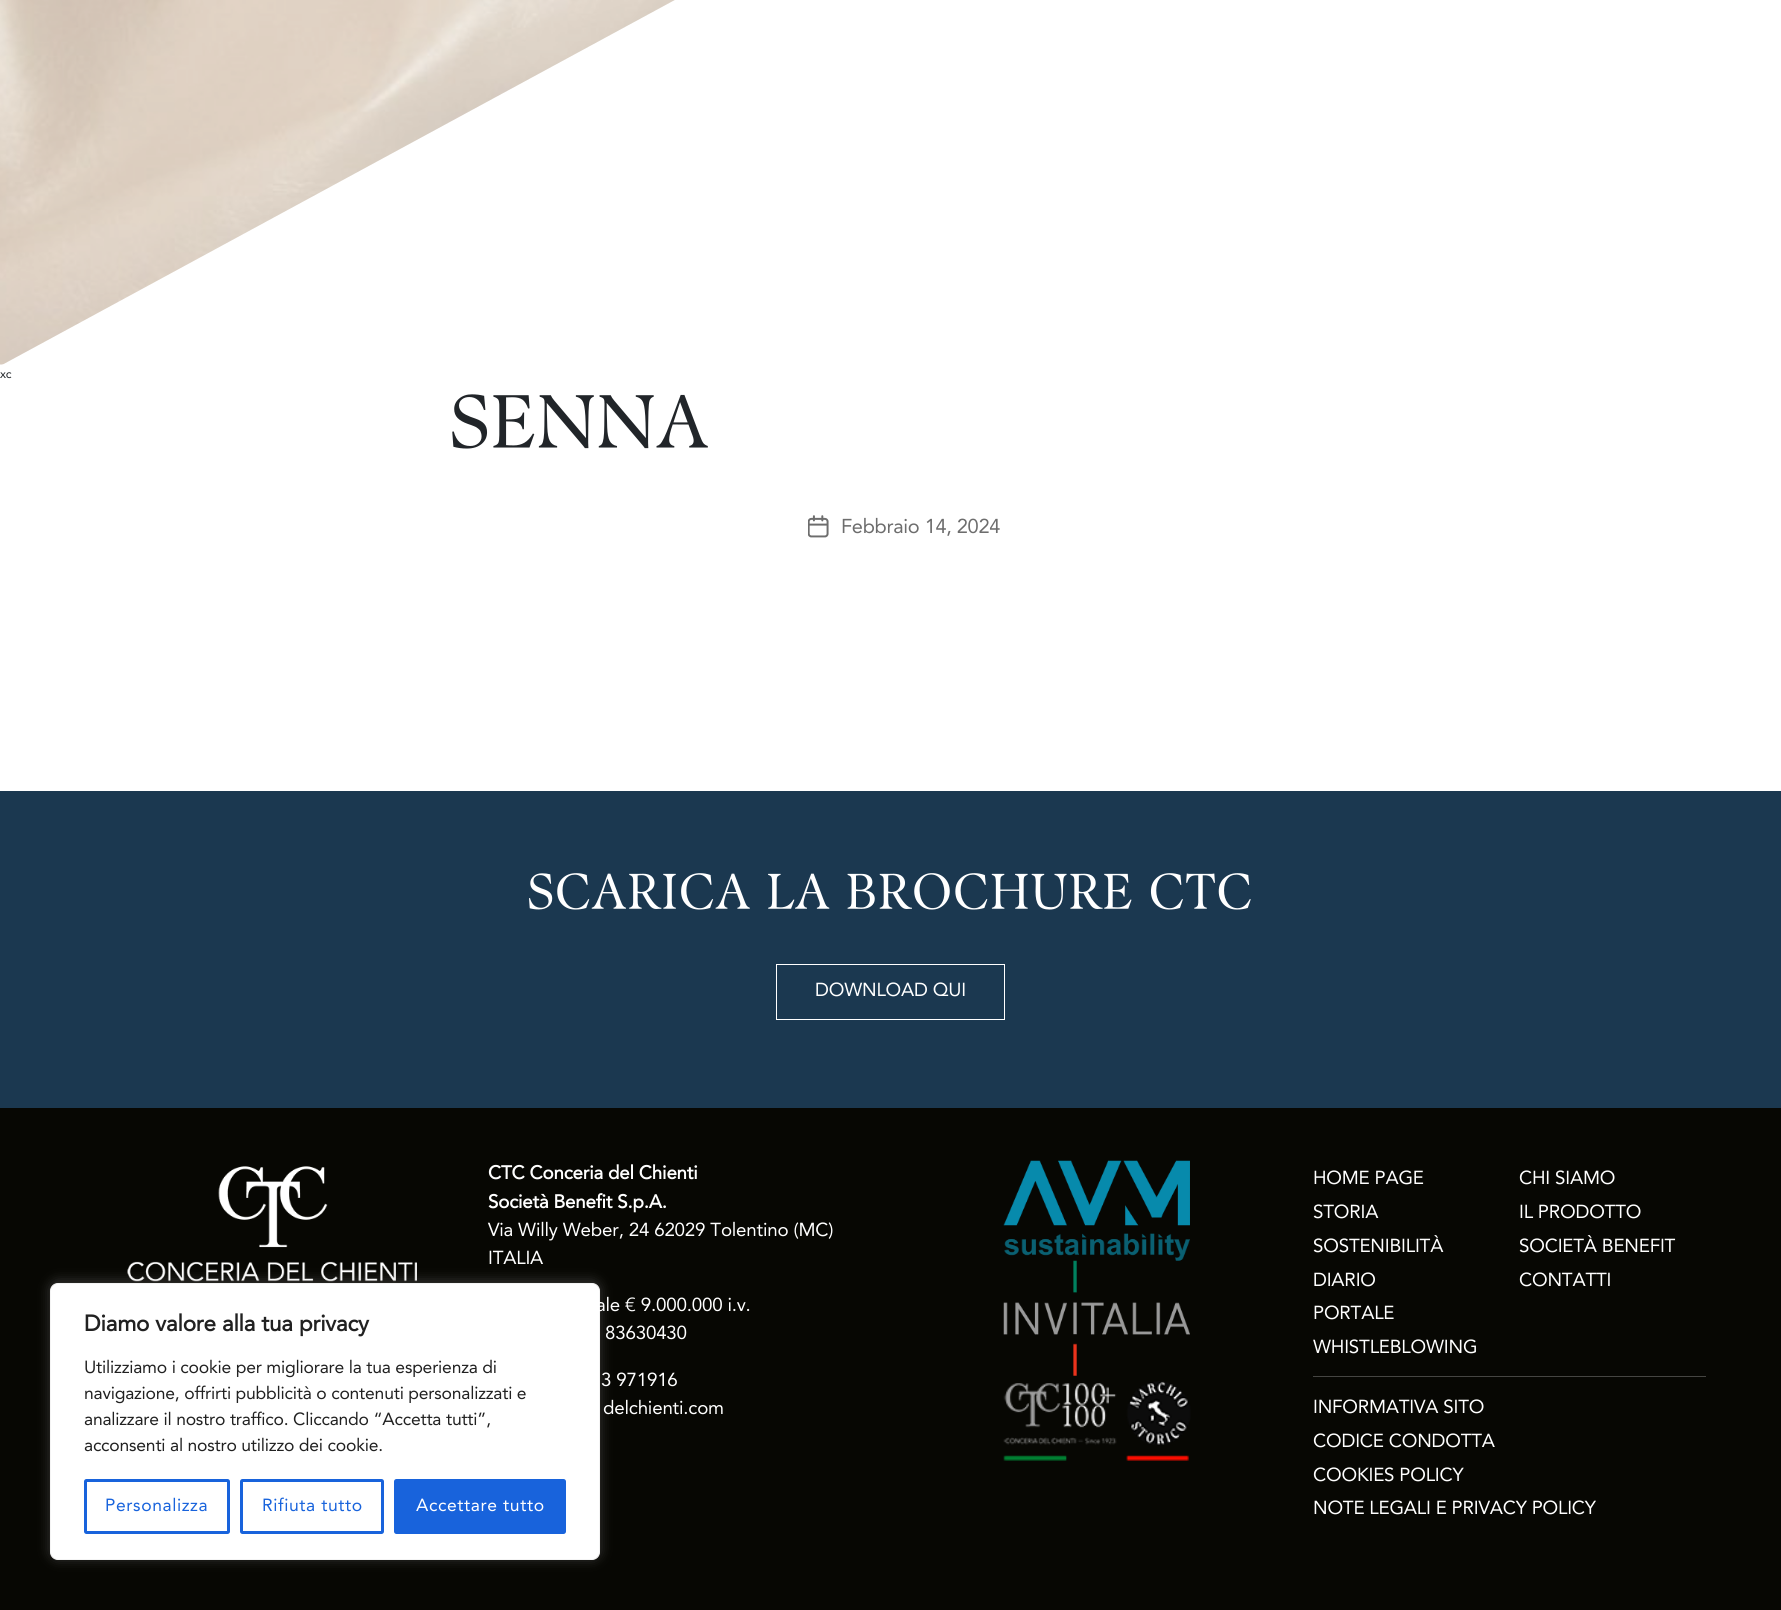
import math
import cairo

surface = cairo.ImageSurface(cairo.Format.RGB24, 1781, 1610)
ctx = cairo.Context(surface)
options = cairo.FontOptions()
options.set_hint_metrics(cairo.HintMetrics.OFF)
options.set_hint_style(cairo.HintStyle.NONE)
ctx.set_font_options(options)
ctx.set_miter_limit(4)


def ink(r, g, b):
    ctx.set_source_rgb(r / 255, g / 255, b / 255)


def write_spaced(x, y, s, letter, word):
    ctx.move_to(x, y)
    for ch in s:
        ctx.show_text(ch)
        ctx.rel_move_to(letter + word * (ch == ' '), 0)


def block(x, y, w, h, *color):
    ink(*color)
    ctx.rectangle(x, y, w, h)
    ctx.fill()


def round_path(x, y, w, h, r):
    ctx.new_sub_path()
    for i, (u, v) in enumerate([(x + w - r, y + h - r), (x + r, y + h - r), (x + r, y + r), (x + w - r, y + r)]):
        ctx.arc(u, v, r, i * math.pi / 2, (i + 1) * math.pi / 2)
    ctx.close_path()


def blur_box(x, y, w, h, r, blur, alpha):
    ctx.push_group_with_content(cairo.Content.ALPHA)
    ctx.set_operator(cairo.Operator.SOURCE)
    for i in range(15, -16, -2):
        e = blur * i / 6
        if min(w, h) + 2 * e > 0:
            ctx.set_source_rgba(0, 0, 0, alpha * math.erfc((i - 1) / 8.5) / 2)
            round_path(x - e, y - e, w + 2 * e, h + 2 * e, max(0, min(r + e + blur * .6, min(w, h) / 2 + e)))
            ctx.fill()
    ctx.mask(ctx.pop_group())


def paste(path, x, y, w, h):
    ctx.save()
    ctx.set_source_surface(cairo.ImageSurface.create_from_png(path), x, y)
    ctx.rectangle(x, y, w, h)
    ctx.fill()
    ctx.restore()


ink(255, 255, 255)
ctx.paint()
paste("pic1.png", 0, 0, 675, 365)
ink(255, 255, 255)
ctx.new_path()
ctx.move_to(1781, -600)
ctx.line_to(1781, 366)
ctx.line_to(0, 366)
ctx.close_path()
ctx.fill()
ctx.select_font_face("Avenir")
ctx.set_font_size(12)
ink(33, 37, 41)
write_spaced(0, 378, "xc", -0.2, 0)
paste("pic2.png", 452, 394, 256, 55)
paste("pic3.png", 808, 515, 21, 23)
ctx.set_font_size(20)
ink(109, 109, 109)
write_spaced(841, 533, "Febbraio 14, 2024", -0.3, 0)
block(0, 791, 1781, 317, 27, 56, 80)
paste("pic4.png", 529, 873, 722, 37)
ctx.rectangle(776.5, 964.5, 228, 55)
ink(255, 255, 255)
ctx.set_line_width(1)
ctx.stroke()
ctx.set_font_size(18.75)
write_spaced(815, 996, "DOWNLOAD QUI", -0.2, 0)
block(0, 1108, 1781, 502, 7, 7, 3)
paste("pic5.png", 127, 1166, 290, 116)
ink(172, 171, 171)
blur_box(50, 1281, 550, 278, 8, 6, 0.3)
ink(255, 255, 255)
round_path(50.5, 1283.5, 549, 276, 7.5)
ctx.fill_preserve()
ink(244, 244, 244)
ctx.stroke()
ctx.select_font_face("Avenir", cairo.FontSlant.NORMAL, cairo.FontWeight.BOLD)
ctx.set_font_size(22.5)
ink(33, 33, 33)
write_spaced(84, 1331, "Diamo valore alla tua privacy", -0.2, 0)
ctx.select_font_face("Avenir")
ctx.set_font_size(17.5)
write_spaced(84, 1373, "Utilizziamo i cookie per migliorare la tua esperienza di", -0.2, 0)
write_spaced(84, 1399, "navigazione, offrirti pubblicità o contenuti personalizzati e", -0.2, 0)
write_spaced(84, 1425, "analizzare il nostro traffico. Cliccando “Accetta tutti”,", -0.2, 0)
write_spaced(84, 1451, "acconsenti al nostro utilizzo dei cookie.", -0.2, 0)
round_path(85.5, 1480.5, 143, 52, 1)
ink(24, 99, 220)
ctx.set_line_width(3)
ctx.stroke()
write_spaced(105, 1511, "Personalizza", 0.6, 0)
round_path(241.5, 1480.5, 141, 52, 1)
ctx.stroke()
write_spaced(262, 1511, "Rifiuta tutto", 0.6, 0)
round_path(395.5, 1480.5, 169, 52, 1)
ctx.fill_preserve()
ctx.stroke()
ink(255, 255, 255)
write_spaced(416, 1511, "Accettare tutto", 0.6, 0)
ctx.select_font_face("Avenir", cairo.FontSlant.NORMAL, cairo.FontWeight.BOLD)
ctx.set_font_size(18.75)
write_spaced(488, 1179, "CTC Conceria del Chienti", -0.2, 0)
write_spaced(488, 1208, "Società Benefit S.p.A.", -0.2, 0)
ctx.select_font_face("Avenir")
write_spaced(488, 1236, "Via Willy Weber, 24 62029 Tolentino (MC)", -0.2, 0)
write_spaced(488, 1264, "ITALIA", -0.2, 0)
write_spaced(596, 1311, "ale € 9.000.000 i.v.", -0.2, 0)
write_spaced(605, 1339, "83630430", -0.2, 0)
write_spaced(601, 1386, "3 971916", -0.2, 0)
write_spaced(603, 1414, "delchienti.com", -0.2, 0)
paste("pic6.png", 1003, 1160, 187, 101)
paste("pic7.png", 1003, 1260, 187, 116)
paste("pic8.png", 1003, 1381, 188, 80)
write_spaced(1313, 1184, "HOME PAGE", -0.2, 0)
write_spaced(1519, 1184, "CHI SIAMO", -0.2, 0)
write_spaced(1313, 1218, "STORIA", -0.2, 0)
write_spaced(1519, 1218, "IL PRODOTTO", -0.2, 0)
write_spaced(1313, 1252, "SOSTENIBILITÀ", -0.2, 0)
write_spaced(1519, 1252, "SOCIETÀ BENEFIT", -0.2, 0)
write_spaced(1313, 1286, "DIARIO", -0.2, 0)
write_spaced(1519, 1286, "CONTATTI", -0.2, 0)
write_spaced(1313, 1319, "PORTALE", -0.2, 0)
write_spaced(1313, 1353, "WHISTLEBLOWING", -0.2, 0)
block(1313, 1376, 393, 1, 69, 69, 66)
ink(255, 255, 255)
write_spaced(1313, 1413, "INFORMATIVA SITO", -0.2, 0)
write_spaced(1313, 1447, "CODICE CONDOTTA", -0.2, 0)
write_spaced(1313, 1481, "COOKIES POLICY", -0.2, 0)
write_spaced(1313, 1514, "NOTE LEGALI E PRIVACY POLICY", -0.2, 0)
surface.write_to_png("screenshot.png")
